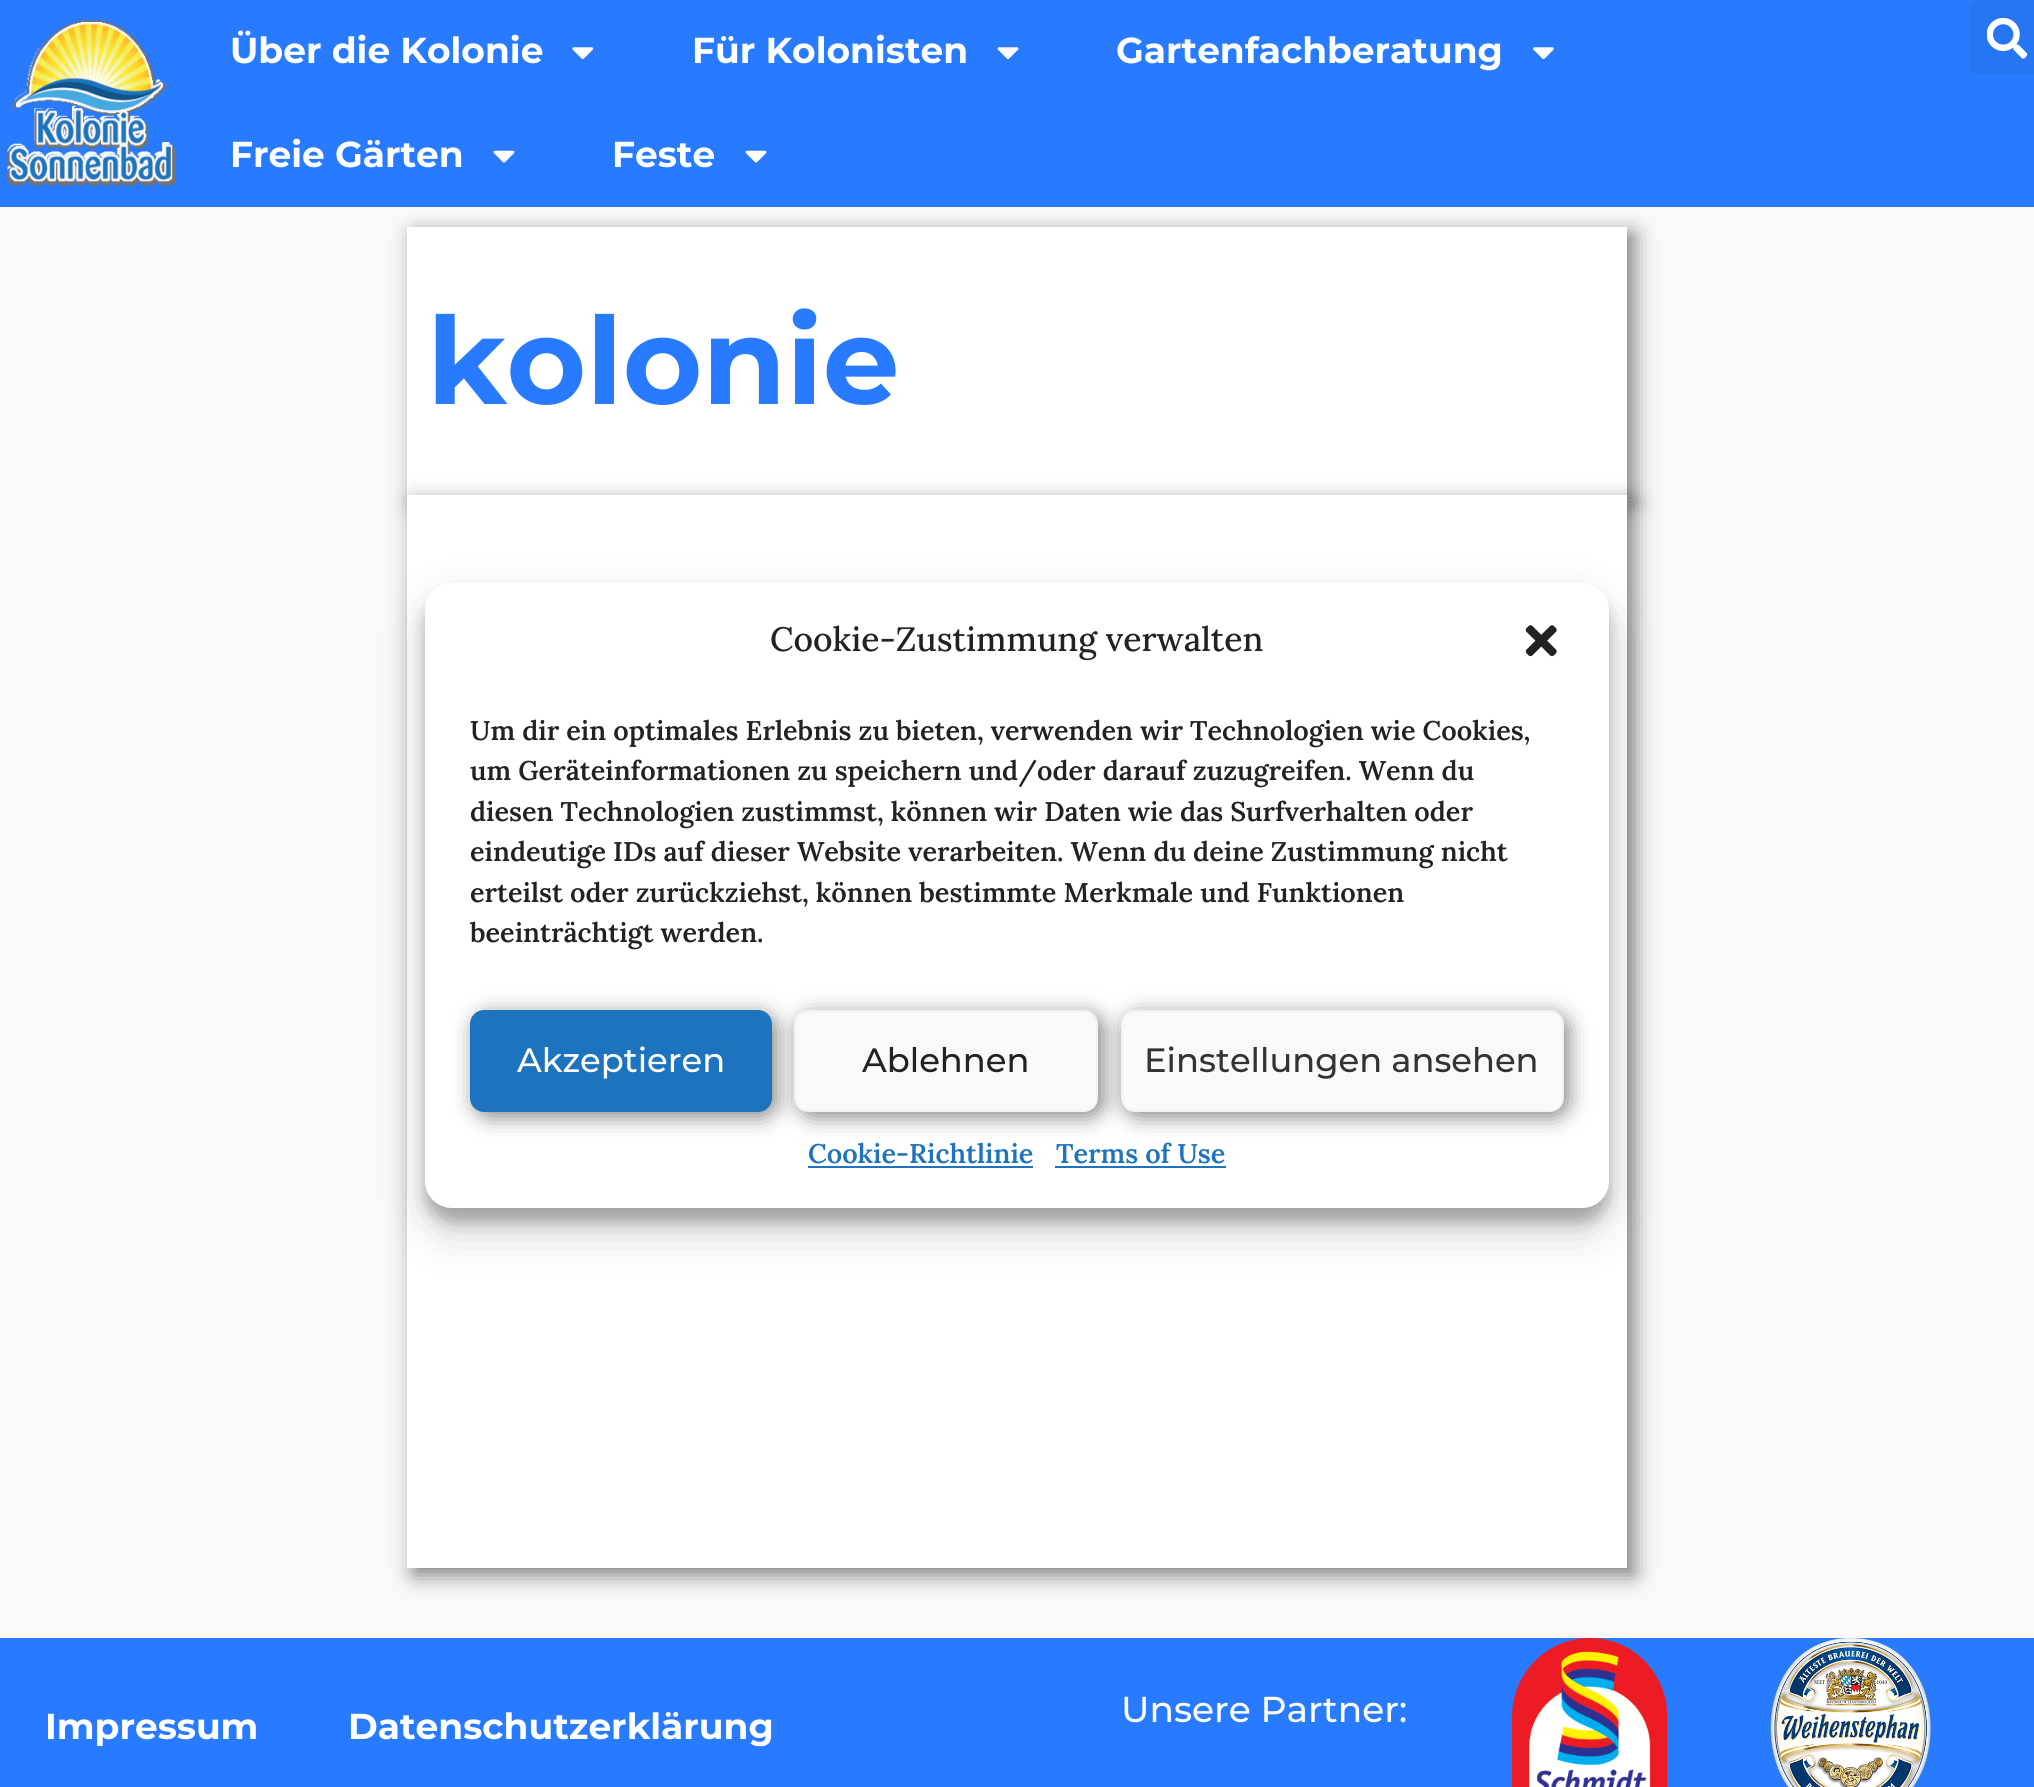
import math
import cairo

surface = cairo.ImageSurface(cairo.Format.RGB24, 2034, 1787)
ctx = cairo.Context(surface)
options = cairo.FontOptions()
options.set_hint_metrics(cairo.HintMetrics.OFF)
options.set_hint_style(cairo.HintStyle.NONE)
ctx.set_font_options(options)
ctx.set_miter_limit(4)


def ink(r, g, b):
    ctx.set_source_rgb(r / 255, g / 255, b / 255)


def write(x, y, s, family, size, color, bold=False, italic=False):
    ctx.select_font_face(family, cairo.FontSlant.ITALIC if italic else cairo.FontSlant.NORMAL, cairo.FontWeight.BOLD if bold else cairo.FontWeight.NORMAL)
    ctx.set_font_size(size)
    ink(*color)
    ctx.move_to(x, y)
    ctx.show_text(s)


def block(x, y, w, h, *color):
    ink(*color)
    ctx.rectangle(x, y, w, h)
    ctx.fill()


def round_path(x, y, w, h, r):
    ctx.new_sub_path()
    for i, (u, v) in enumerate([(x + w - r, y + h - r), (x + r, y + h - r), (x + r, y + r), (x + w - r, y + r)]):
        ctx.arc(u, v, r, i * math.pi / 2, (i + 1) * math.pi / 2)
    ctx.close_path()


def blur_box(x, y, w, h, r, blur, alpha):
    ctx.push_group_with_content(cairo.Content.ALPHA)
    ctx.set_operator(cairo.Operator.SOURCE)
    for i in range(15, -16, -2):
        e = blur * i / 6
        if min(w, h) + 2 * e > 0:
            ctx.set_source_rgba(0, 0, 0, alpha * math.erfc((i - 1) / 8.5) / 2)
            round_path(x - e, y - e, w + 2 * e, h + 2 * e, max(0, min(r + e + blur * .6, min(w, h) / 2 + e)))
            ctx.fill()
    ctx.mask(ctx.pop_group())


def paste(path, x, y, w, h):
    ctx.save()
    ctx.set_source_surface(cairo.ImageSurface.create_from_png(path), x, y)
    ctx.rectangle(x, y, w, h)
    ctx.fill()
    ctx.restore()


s1 = dict(family="Montserrat", size=36, color=(255, 255, 255), bold=True)
s2 = dict(family="Montserrat", size=121.5, color=(40, 123, 255), bold=True)
s3 = dict(family="Lora Medium", size=33.75, color=(34, 34, 34))
s4 = dict(family="Lora SemiBold", size=27, color=(34, 34, 34))
s5 = dict(family="Montserrat Medium", size=33.75, color=(255, 255, 255))
s6 = dict(family="Montserrat Medium", size=33.75, color=(34, 34, 34))
s7 = dict(family="Montserrat Medium", size=33.75, color=(51, 51, 51))
s8 = dict(family="Lora SemiBold", size=27, color=(30, 115, 190))
s9 = dict(family="Montserrat Medium", size=36, color=(255, 255, 255))

ink(40, 123, 255)
ctx.paint()
paste("pic1.png", 6, 20, 170, 166)
write(230, 63, "Über die Kolonie", **s1)
paste("pic2.png", 572, 47, 22, 13)
write(692, 63, "Für Kolonisten", **s1)
paste("pic3.png", 997, 47, 22, 13)
write(1116, 63, "Gartenfachberatung", **s1)
paste("pic4.png", 1533, 47, 21, 13)
write(230, 167, "Freie Gärten", **s1)
paste("pic5.png", 493, 150, 22, 13)
write(612, 167, "Feste", **s1)
paste("pic5.png", 745, 150, 22, 13)
ink(38, 117, 242)
round_path(1969, 0, 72, 74, 7)
ctx.fill()
paste("pic6.png", 1987, 18, 40, 41)
block(0, 207, 2034, 1431, 250, 248, 248)
ink(0, 0, 0)
blur_box(414, 234, 1220, 268, 0, 11, 0.5)
block(407, 227, 1220, 268, 255, 255, 255)
write(427, 404, "kolonie", **s2)
ink(0, 0, 0)
blur_box(414, 502, 1220, 1073, 0, 11, 0.5)
block(407, 495, 1220, 1073, 255, 255, 255)
ink(0, 0, 0)
blur_box(425, 596, 1184, 626, 27, 7, 0.23)
blur_box(425, 605, 1184, 626, 27, 22.5, 0.19)
ink(255, 255, 255)
round_path(425, 583, 1184, 625, 27)
ctx.fill()
write(770, 651, "Cookie-Zustimmung verwalten", **s3)
paste("pic7.png", 1525, 625, 32, 32)
write(470, 740, "Um dir ein optimales Erlebnis zu bieten, verwenden wir Technologien wie Cookies,", **s4)
write(470, 780, "um Geräteinformationen zu speichern und/oder darauf zuzugreifen. Wenn du", **s4)
write(470, 821, "diesen Technologien zustimmst, können wir Daten wie das Surfverhalten oder", **s4)
write(470, 861, "eindeutige IDs auf dieser Website verarbeiten. Wenn du deine Zustimmung nicht", **s4)
write(470, 902, "erteilst oder zurückziehst, können bestimmte Merkmale und Funktionen", **s4)
write(470, 942, "beeinträchtigt werden.", **s4)
ink(0, 0, 0)
blur_box(475, 1015, 301, 101, 14, 11, 0.5)
ink(30, 115, 190)
round_path(471, 1011, 300, 100, 13)
ctx.fill_preserve()
ctx.stroke()
write(517, 1072, "Akzeptieren", **s5)
ink(0, 0, 0)
blur_box(799, 1015, 304, 101, 14, 11, 0.5)
ink(249, 249, 249)
round_path(795, 1011, 302, 100, 13)
ctx.fill_preserve()
ink(242, 242, 242)
ctx.stroke()
write(862, 1072, "Ablehnen", **s6)
ink(0, 0, 0)
blur_box(1125, 1015, 443, 101, 14, 11, 0.5)
ink(249, 249, 249)
round_path(1122, 1011, 441, 100, 13)
ctx.fill_preserve()
ink(242, 242, 242)
ctx.stroke()
write(1144, 1072, "Einstellungen ansehen", **s7)
write(808, 1163, "Cookie-Richtlinie", **s8)
block(808, 1166, 225, 2, 30, 115, 190)
write(1056, 1163, "Terms of Use", **s8)
block(1055, 1166, 171, 2, 30, 115, 190)
write(45, 1739, "Impressum", **s1)
write(348, 1739, "Datenschutzerklärung", **s1)
write(1121, 1722, "Unsere Partner:", **s9)
paste("pic8.png", 1512, 1638, 156, 149)
paste("pic9.png", 1770, 1638, 161, 149)
surface.write_to_png("screenshot.png")
